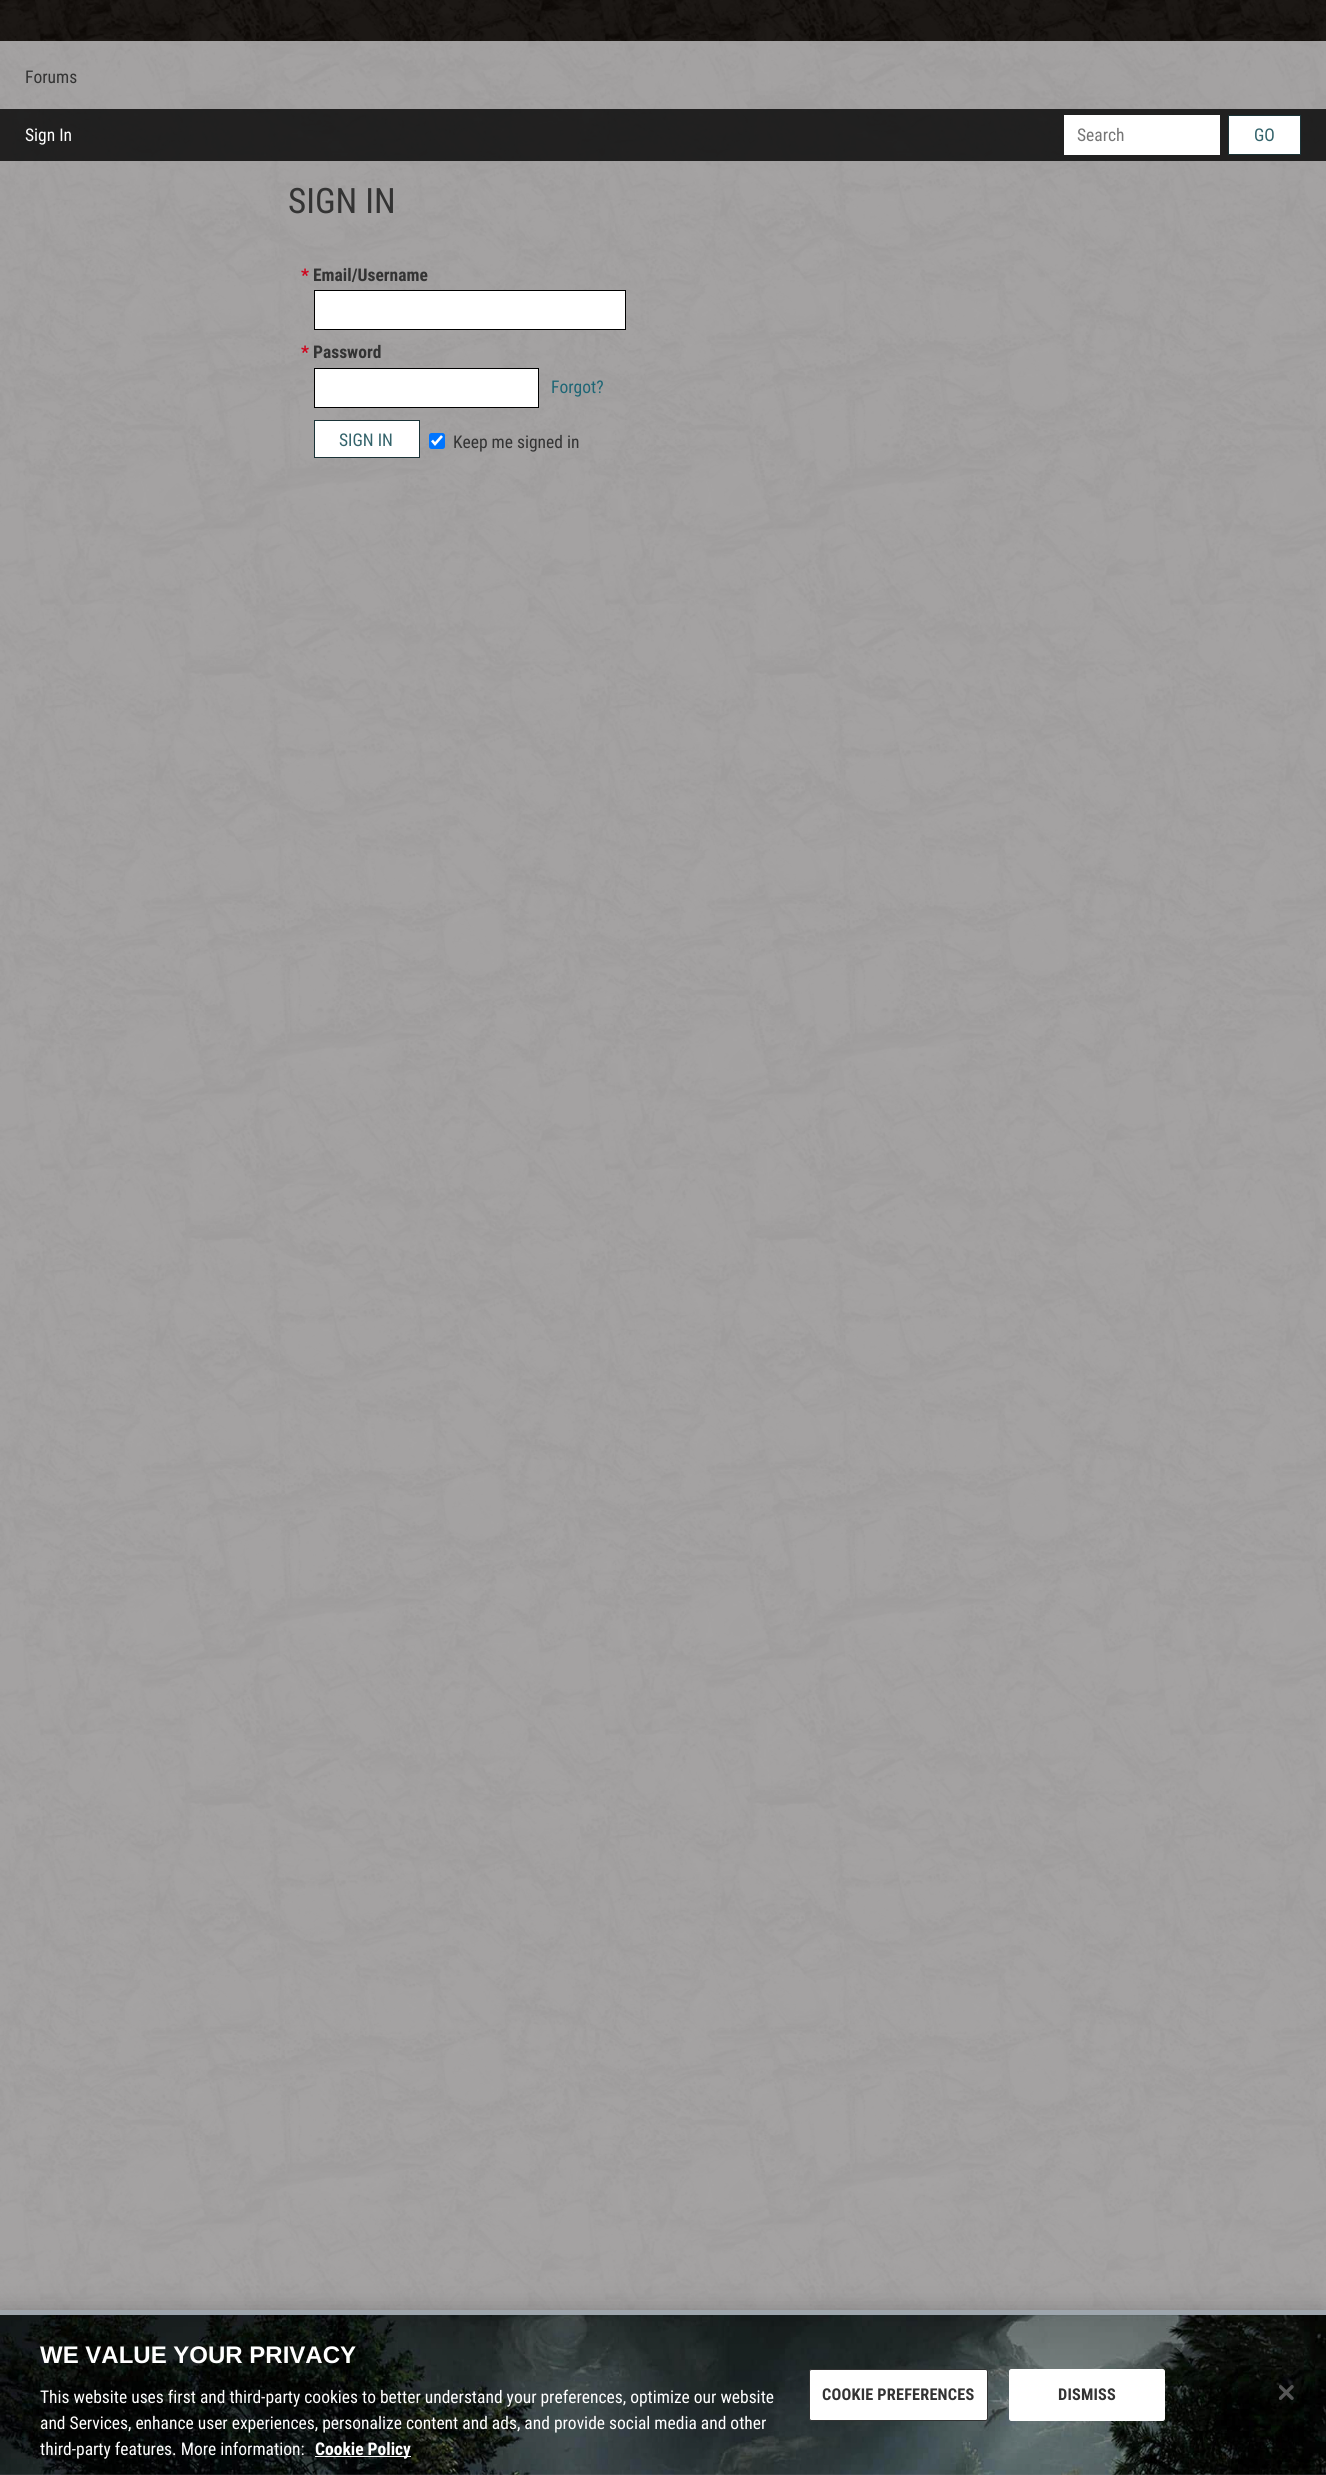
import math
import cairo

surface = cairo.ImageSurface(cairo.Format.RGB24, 1326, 2475)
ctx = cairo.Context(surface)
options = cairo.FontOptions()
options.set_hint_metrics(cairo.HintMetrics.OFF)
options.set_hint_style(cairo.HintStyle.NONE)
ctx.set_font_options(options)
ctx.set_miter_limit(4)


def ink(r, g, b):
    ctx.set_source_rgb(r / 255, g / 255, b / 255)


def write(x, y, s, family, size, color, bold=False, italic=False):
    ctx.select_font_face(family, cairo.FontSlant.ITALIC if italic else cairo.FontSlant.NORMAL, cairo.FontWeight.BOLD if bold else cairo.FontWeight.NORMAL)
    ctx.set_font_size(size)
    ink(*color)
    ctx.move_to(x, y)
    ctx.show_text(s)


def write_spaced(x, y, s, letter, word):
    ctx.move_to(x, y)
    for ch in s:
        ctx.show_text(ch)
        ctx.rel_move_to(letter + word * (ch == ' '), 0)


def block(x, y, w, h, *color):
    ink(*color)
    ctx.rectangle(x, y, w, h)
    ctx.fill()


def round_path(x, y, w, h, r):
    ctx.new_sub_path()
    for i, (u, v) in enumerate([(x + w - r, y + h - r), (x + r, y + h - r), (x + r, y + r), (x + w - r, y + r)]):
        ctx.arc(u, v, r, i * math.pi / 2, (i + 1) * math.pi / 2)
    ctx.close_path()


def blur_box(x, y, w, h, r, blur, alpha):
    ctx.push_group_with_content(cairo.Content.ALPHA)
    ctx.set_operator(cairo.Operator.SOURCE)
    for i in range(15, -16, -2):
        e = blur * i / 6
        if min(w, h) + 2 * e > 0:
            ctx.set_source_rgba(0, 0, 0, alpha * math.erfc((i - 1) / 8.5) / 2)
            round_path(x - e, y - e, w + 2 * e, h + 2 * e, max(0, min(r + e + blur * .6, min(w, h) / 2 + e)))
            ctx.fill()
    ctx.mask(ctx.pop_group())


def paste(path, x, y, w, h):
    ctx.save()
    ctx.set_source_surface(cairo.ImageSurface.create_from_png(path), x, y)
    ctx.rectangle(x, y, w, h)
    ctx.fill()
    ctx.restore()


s1 = dict(family="Roboto Condensed", size=17.5, color=(51, 51, 51))
s2 = dict(family="Roboto Condensed", size=17.5, color=(255, 255, 255))
s3 = dict(family="Roboto Condensed", size=17.5, color=(117, 117, 117))
s4 = dict(family="Roboto Condensed", size=17.5, color=(51, 99, 107))
s5 = dict(family="Roboto Condensed", size=35, color=(51, 51, 51))
s6 = dict(family="Roboto Condensed", size=17.5, color=(208, 2, 27), bold=True)
s7 = dict(family="Roboto Condensed", size=17.5, color=(51, 51, 51), bold=True)
s8 = dict(family="Roboto Condensed", size=17.5, color=(30, 102, 117))
s9 = dict(family="Liberation Sans", size=24, color=(255, 255, 255), bold=True)
s10 = dict(family="Roboto Condensed", size=17.5, color=(255, 255, 255), bold=True)

ink(10, 6, 2)
ctx.paint()
block(0, 41, 1326, 2434, 157, 155, 154)
paste("pic1.png", 0, 0, 1326, 2475)
write(25, 83, "Forums", **s1)
ctx.set_source_rgba(0, 0, 0, 0.8)
ctx.rectangle(0, 109, 1326, 52)
ctx.fill()
write(25, 141, "Sign In", **s2)
block(1064, 115, 156, 40, 255, 255, 255)
write(1077, 141, "Search", **s3)
ink(255, 255, 255)
ctx.rectangle(1228.5, 115.5, 72, 39)
ctx.fill_preserve()
ink(26, 51, 55)
ctx.set_line_width(1)
ctx.stroke()
write(1254, 141, "GO", **s4)
write(288, 213, "SIGN IN", **s5)
write(301, 281, "*", **s6)
write(313, 281, "Email/Username", **s7)
ink(255, 255, 255)
ctx.rectangle(314.5, 290.5, 311, 39)
ctx.fill_preserve()
ink(0, 0, 0)
ctx.stroke()
write(301, 358, "*", **s6)
write(313, 358, "Password", **s7)
ink(255, 255, 255)
ctx.rectangle(314.5, 368.5, 224, 39)
ctx.fill_preserve()
ink(0, 0, 0)
ctx.stroke()
write(551, 393, "Forgot?", **s8)
ink(255, 255, 255)
ctx.rectangle(314.5, 420.5, 105, 37)
ctx.fill_preserve()
ink(26, 51, 55)
ctx.stroke()
write(339, 446, "SIGN IN", **s4)
ink(0, 117, 255)
round_path(429, 433, 16, 16, 2.5)
ctx.fill()
ctx.new_path()
ctx.move_to(432, 440.5)
ctx.line_to(435, 444)
ctx.line_to(442, 436)
ink(255, 255, 255)
ctx.set_line_width(2.6)
ctx.stroke()
write(453, 448, "Keep me signed in", **s1)
ink(0, 0, 0)
blur_box(0, 2310, 1326, 165, 0, 11, 0.2)
block(0, 2310, 1326, 5, 158, 166, 173)
paste("pic2.png", 0, 2315, 1326, 160)
write(40, 2363, "WE VALUE YOUR PRIVACY", **s9)
write(40, 2403, "This website uses first and third-party cookies to better understand your preferences, optimize our website", **s2)
write(40, 2429, "and Services, enhance user experiences, personalize content and ads, and provide social media and other", **s2)
write(40, 2455, "third-party features. More information:", **s2)
block(315, 2456, 96, 1, 255, 255, 255)
write(315, 2455, "Cookie Policy", **s10)
round_path(809.5, 2369.5, 178, 51, 2)
ctx.fill_preserve()
ink(51, 51, 51)
ctx.set_line_width(1)
ctx.stroke()
ctx.set_font_size(16.25)
write_spaced(822, 2400, "COOKIE PREFERENCES", 0.2, 0)
ink(255, 255, 255)
round_path(1009.5, 2369.5, 155, 51, 2)
ctx.fill_preserve()
ctx.stroke()
ink(51, 51, 51)
write_spaced(1058, 2400, "DISMISS", 0.2, 0)
paste("pic3.png", 1279, 2385, 15, 15)
surface.write_to_png("screenshot.png")
